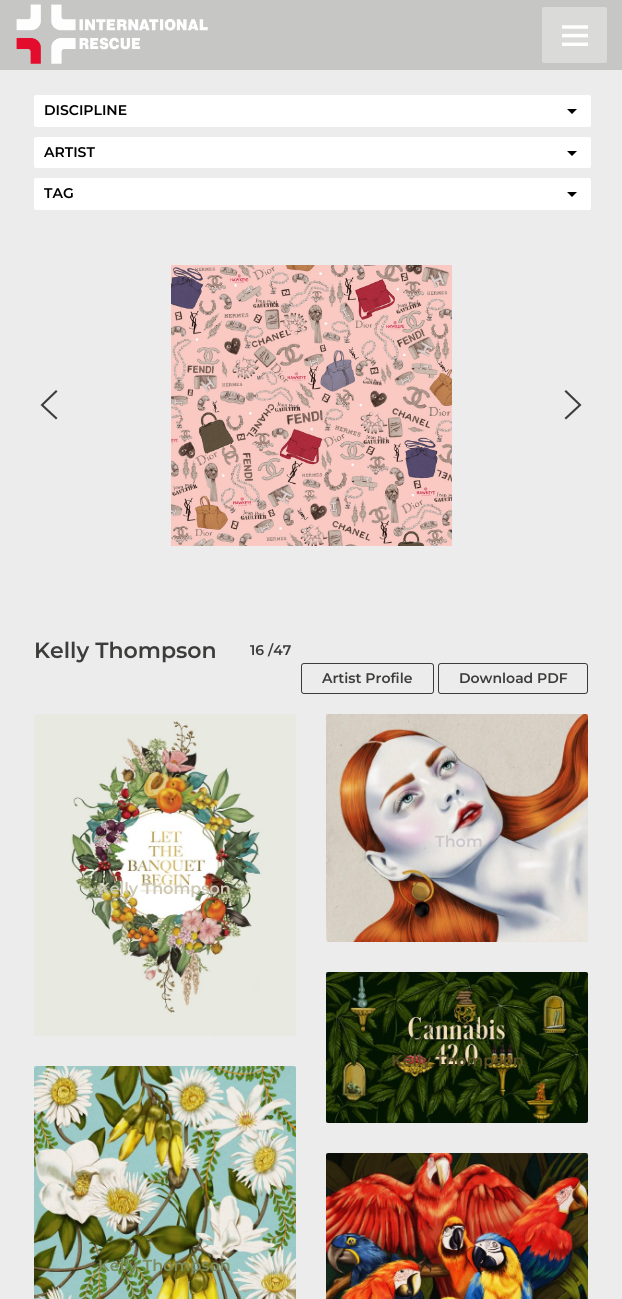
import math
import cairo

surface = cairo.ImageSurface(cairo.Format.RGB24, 622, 1299)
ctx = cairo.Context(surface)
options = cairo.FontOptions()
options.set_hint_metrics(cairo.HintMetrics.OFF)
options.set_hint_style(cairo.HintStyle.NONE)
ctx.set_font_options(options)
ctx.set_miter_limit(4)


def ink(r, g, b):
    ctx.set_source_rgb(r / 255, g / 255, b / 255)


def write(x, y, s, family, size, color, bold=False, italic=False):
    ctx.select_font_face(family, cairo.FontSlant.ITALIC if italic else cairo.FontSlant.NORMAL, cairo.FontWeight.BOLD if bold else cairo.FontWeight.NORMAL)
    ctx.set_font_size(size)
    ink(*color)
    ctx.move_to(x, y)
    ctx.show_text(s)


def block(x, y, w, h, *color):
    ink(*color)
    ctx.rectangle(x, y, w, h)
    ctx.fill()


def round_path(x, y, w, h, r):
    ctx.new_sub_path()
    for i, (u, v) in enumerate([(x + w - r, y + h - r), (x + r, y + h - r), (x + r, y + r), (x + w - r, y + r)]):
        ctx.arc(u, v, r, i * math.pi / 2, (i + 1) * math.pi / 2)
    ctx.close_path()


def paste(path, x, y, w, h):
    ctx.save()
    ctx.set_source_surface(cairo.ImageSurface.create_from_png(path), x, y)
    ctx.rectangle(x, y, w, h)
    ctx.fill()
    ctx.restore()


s1 = dict(family="Montserrat SemiBold", size=14, color=(0, 0, 0))
s2 = dict(family="Montserrat SemiBold", size=22, color=(60, 60, 59))
s3 = dict(family="Montserrat SemiBold", size=14, color=(60, 60, 59))
s4 = dict(family="Montserrat SemiBold", size=16, color=(204, 200, 181))
s5 = dict(family="Montserrat SemiBold", size=16, color=(123, 140, 94))
s6 = dict(family="Montserrat SemiBold", size=16, color=(204, 198, 203))
s7 = dict(family="Montserrat SemiBold", size=16, color=(90, 78, 36))

ink(236, 236, 236)
ctx.paint()
block(0, 0, 622, 70, 198, 198, 197)
paste("pic1.png", 16, 4, 192, 60)
ink(218, 218, 217)
round_path(542, 7, 65, 56, 2)
ctx.fill()
paste("pic2.png", 562, 25, 26, 21)
ink(255, 255, 255)
round_path(34, 95, 557, 32, 2)
ctx.fill()
write(44, 115, "DISCIPLINE", **s1)
ink(255, 255, 255)
round_path(34, 137, 557, 31, 2)
ctx.fill()
ink(0, 0, 0)
ctx.new_path()
ctx.move_to(567, 109)
ctx.line_to(577, 109)
ctx.line_to(572, 114)
ctx.close_path()
ctx.move_to(567, 151)
ctx.line_to(577, 151)
ctx.line_to(572, 156)
ctx.close_path()
ctx.fill()
write(44, 157, "ARTIST", **s1)
ink(255, 255, 255)
round_path(34, 178, 557, 32, 2)
ctx.fill()
write(44, 198, "TAG", **s1)
ctx.new_path()
ctx.move_to(567, 192)
ctx.line_to(577, 192)
ctx.line_to(572, 197)
ctx.close_path()
ctx.fill()
ink(60, 60, 59)
ctx.new_path()
ctx.move_to(56, 419.5)
ctx.line_to(40.5, 405)
ctx.line_to(56, 390)
ctx.line_to(57.5, 391.5)
ctx.line_to(43.5, 405)
ctx.line_to(57.5, 418)
ctx.close_path()
ctx.fill()
paste("pic3.png", 171, 265, 281, 281)
ctx.new_path()
ctx.move_to(566, 419.5)
ctx.line_to(564.5, 418)
ctx.line_to(578.5, 405)
ctx.line_to(564.5, 391.5)
ctx.line_to(566, 390)
ctx.line_to(581.5, 405)
ctx.close_path()
ctx.fill()
write(34, 658, "Kelly Thompson", **s2)
write(250, 655, "16 /47", **s3)
round_path(301.5, 663.5, 132, 30, 2.5)
ctx.set_line_width(1)
ctx.stroke()
write(322, 683, "Artist Profile", **s3)
round_path(438.5, 663.5, 149, 30, 2.5)
ctx.stroke()
write(459, 683, "Download PDF", **s3)
paste("pic4.png", 34, 714, 262, 322)
write(98, 894, "Kelly Thompson", **s4)
paste("pic5.png", 34, 1066, 262, 233)
write(98, 1271, "Kelly Thompson", **s5)
paste("pic6.png", 326, 714, 262, 228)
write(435, 847, "Thom", **s6)
paste("pic7.png", 326, 972, 262, 151)
write(391, 1066, "Kelly Thompson", **s7)
paste("pic8.png", 326, 1153, 262, 146)
surface.write_to_png("screenshot.png")
